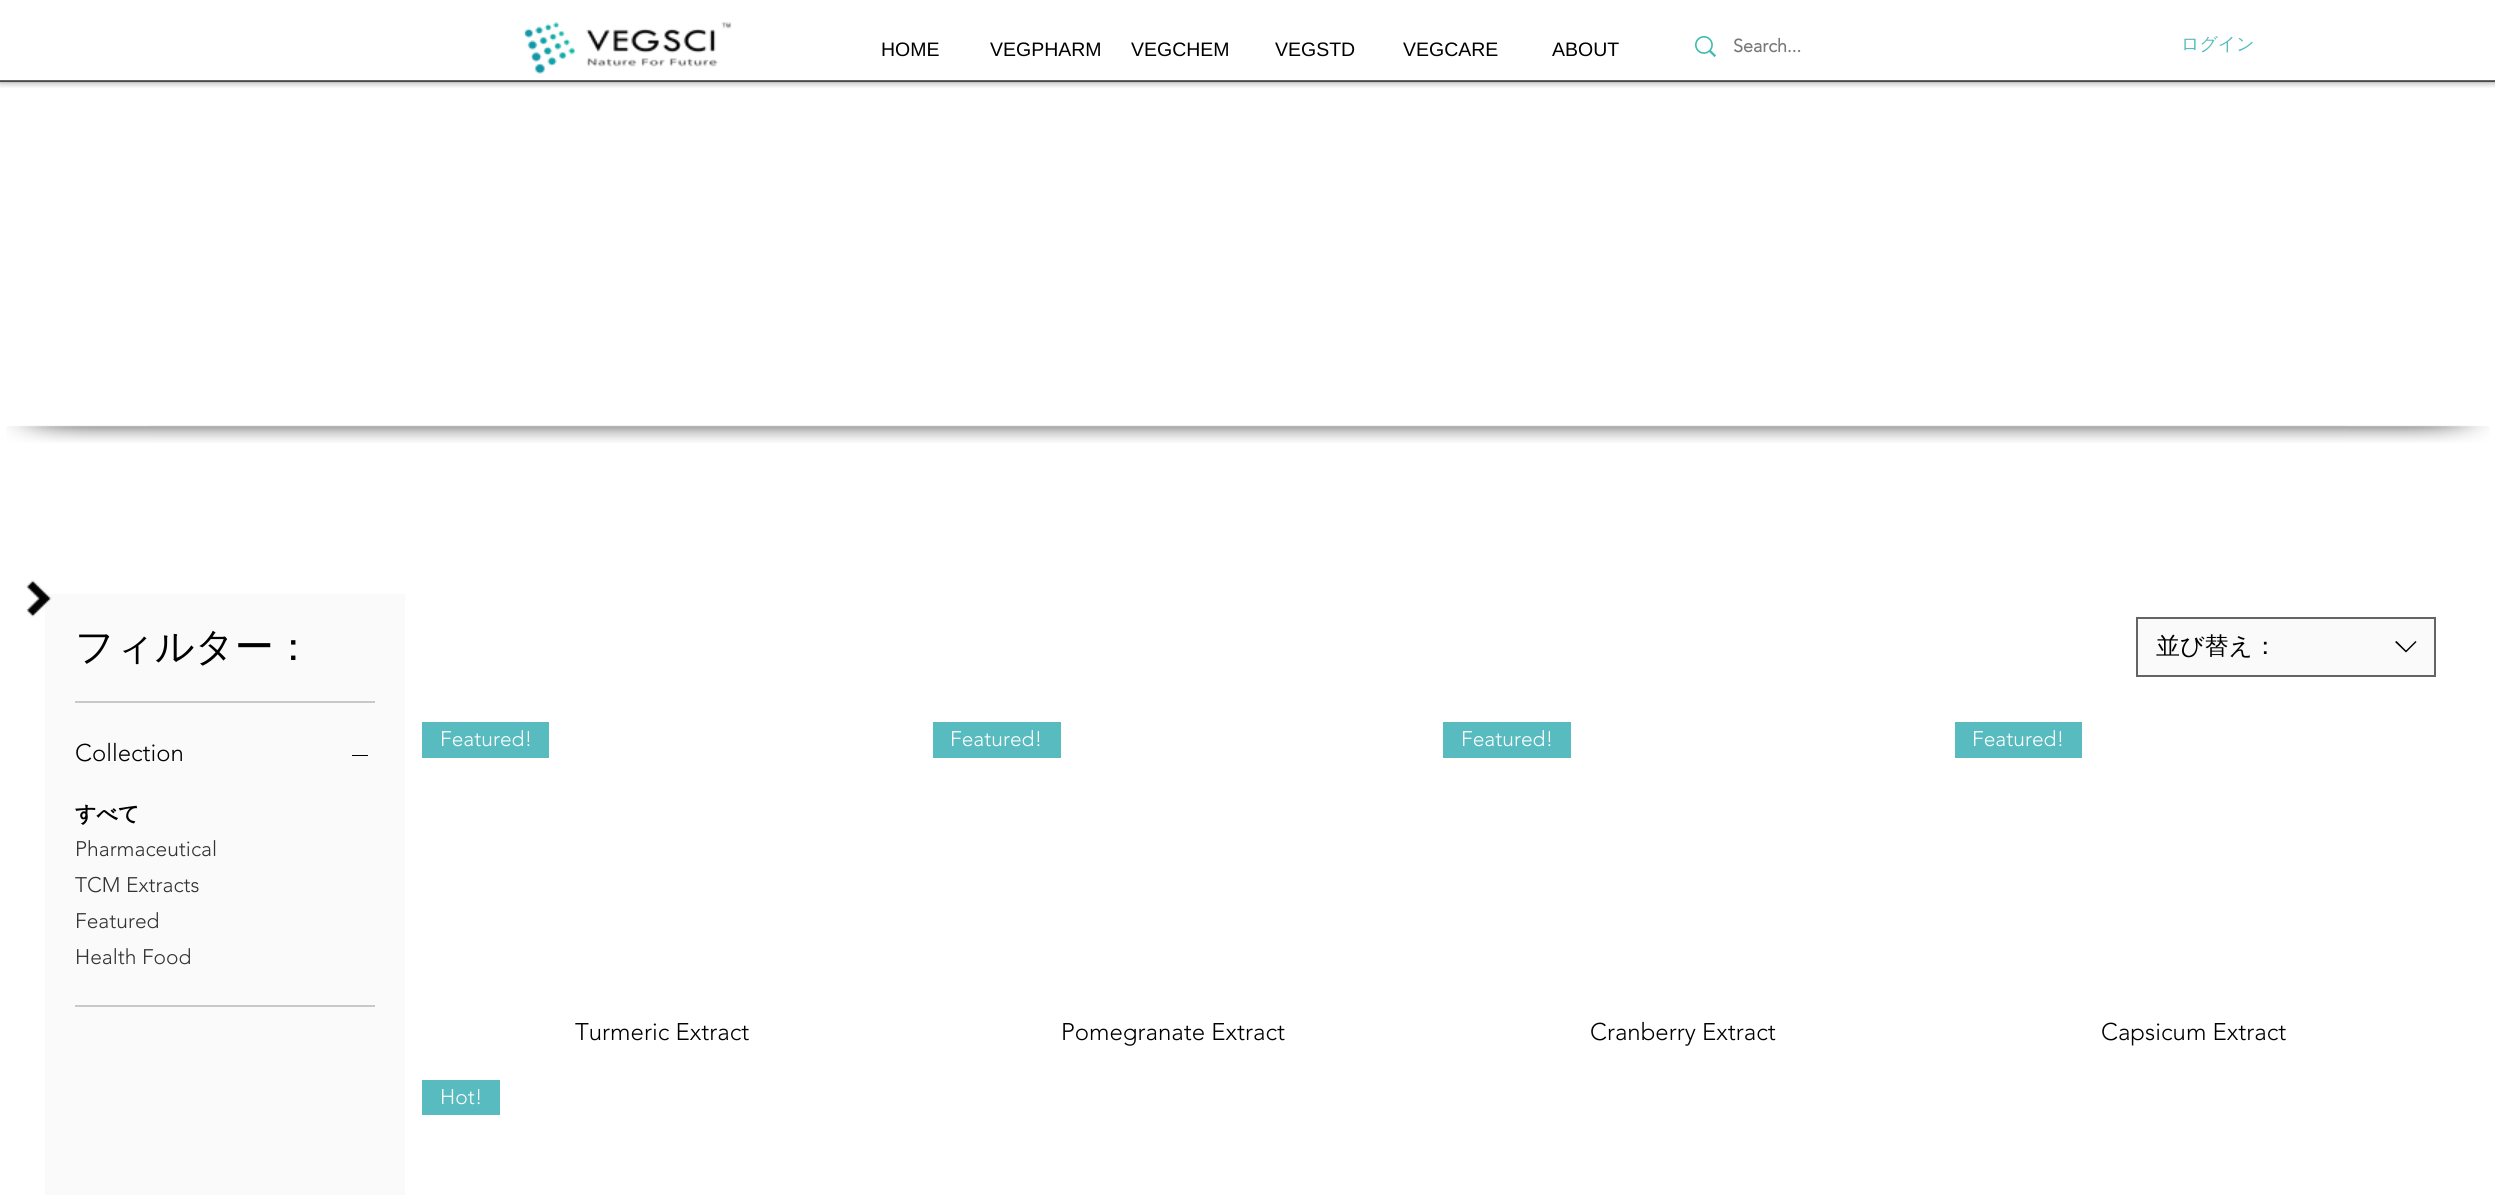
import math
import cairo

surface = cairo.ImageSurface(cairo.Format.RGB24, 2495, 1195)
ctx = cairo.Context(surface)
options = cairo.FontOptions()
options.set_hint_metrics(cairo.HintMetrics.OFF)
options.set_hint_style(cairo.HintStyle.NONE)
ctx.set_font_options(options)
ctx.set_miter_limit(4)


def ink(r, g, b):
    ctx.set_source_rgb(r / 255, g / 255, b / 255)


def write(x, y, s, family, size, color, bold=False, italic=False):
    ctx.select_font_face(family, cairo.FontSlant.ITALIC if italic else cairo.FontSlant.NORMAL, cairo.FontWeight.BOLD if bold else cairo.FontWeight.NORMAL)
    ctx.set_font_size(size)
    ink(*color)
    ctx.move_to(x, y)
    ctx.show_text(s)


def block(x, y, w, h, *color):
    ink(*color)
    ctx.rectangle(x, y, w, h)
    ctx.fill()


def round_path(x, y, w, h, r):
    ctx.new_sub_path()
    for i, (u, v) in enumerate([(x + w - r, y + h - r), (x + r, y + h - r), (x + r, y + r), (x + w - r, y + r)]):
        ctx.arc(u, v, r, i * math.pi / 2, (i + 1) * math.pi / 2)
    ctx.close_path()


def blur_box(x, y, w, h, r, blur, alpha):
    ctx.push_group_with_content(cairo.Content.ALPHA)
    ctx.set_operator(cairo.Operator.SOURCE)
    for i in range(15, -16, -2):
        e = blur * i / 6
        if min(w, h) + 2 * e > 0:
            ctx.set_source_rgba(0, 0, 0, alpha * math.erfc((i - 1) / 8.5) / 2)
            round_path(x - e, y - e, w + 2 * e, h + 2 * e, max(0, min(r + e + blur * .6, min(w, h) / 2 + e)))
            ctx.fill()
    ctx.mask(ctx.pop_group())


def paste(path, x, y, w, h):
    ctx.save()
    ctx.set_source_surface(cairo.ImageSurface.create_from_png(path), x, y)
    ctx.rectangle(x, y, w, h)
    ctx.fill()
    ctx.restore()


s1 = dict(family="Liberation Sans", size=19.5, color=(0, 0, 0))
s2 = dict(family="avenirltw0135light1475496", size=18, color=(120, 120, 120), bold=True)
s3 = dict(family="WenQuanYi Zen Hei Medium", size=18, color=(87, 187, 191))
s4 = dict(family="WenQuanYi Zen Hei Medium", size=39, color=(0, 0, 0))
s5 = dict(family="avenirltw0135light1475496 Light", size=24, color=(0, 0, 0))
s6 = dict(family="WenQuanYi Zen Hei", size=21, color=(0, 0, 0), bold=True)
s7 = dict(family="avenirltw0135light1475496 Light", size=21, color=(50, 50, 50))
s8 = dict(family="WenQuanYi Zen Hei Medium", size=24, color=(0, 0, 0))
s9 = dict(family="avenirltw0135light1475496 Light", size=21, color=(255, 255, 255))

ink(255, 255, 255)
ctx.paint()
ctx.save()
ctx.rectangle(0, 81, 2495, 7)
ctx.clip()
ink(0, 0, 0)
blur_box(0, 0, 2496, 81, 0, 4, 0.6)
ctx.restore()
ctx.set_source_rgba(0, 0, 0, 0.6)
ctx.rectangle(0, 80, 2495, 2)
ctx.fill()
paste("pic1.png", 524, 22, 208, 52)
write(881, 56, "HOME", **s1)
write(990, 56, "VEGPHARM", **s1)
write(1131, 56, "VEGCHEM", **s1)
write(1275, 56, "VEGSTD", **s1)
write(1403, 56, "VEGCARE", **s1)
write(1552, 56, "ABOUT", **s1)
paste("pic2.png", 1695, 36, 21, 21)
write(1733, 52, "Search...", **s2)
write(2181, 50, "ログイン", **s3)
block(45, 594, 360, 601, 250, 250, 250)
paste("pic3.png", 26, 580, 26, 37)
paste("pic4.png", 6, 425, 144, 18)
paste("pic5.png", 150, 425, 2196, 18)
paste("pic6.png", 2346, 425, 144, 18)
block(75, 701, 300, 2, 200, 200, 200)
write(75, 660, "フィルター：", **s4)
block(75, 1005, 300, 2, 200, 200, 200)
write(75, 761, "Collection", **s5)
block(352, 755, 16, 1, 0, 0, 0)
write(75, 821, "すべて", **s6)
write(75, 856, "Pharmaceutical", **s7)
write(75, 892, "TCM Extracts", **s7)
write(75, 928, "Featured", **s7)
write(75, 964, "Health Food", **s7)
ink(250, 250, 250)
ctx.rectangle(2137, 618, 298, 58)
ctx.fill_preserve()
ink(100, 100, 100)
ctx.stroke()
write(2156, 654, "並び替え：", **s8)
ctx.set_fill_rule(cairo.FillRule.EVEN_ODD)
ctx.new_path()
ctx.move_to(2415.5, 641)
ctx.line_to(2416.5, 642)
ctx.line_to(2406, 652.5)
ctx.line_to(2395, 642)
ctx.line_to(2396.5, 641)
ctx.line_to(2406, 650.5)
ctx.close_path()
ctx.fill()
block(422, 722, 127, 36, 87, 187, 191)
write(440, 746, "Featured!", **s9)
write(575, 1040, "Turmeric Extract", **s5)
block(933, 722, 128, 36, 87, 187, 191)
write(950, 746, "Featured!", **s9)
write(1061, 1040, "Pomegranate Extract", **s5)
block(1443, 722, 128, 36, 87, 187, 191)
write(1461, 746, "Featured!", **s9)
write(1590, 1040, "Cranberry Extract", **s5)
block(1955, 722, 127, 36, 87, 187, 191)
write(1972, 746, "Featured!", **s9)
write(2101, 1040, "Capsicum Extract", **s5)
block(422, 1080, 78, 35, 87, 187, 191)
write(440, 1104, "Hot!", **s9)
surface.write_to_png("screenshot.png")
